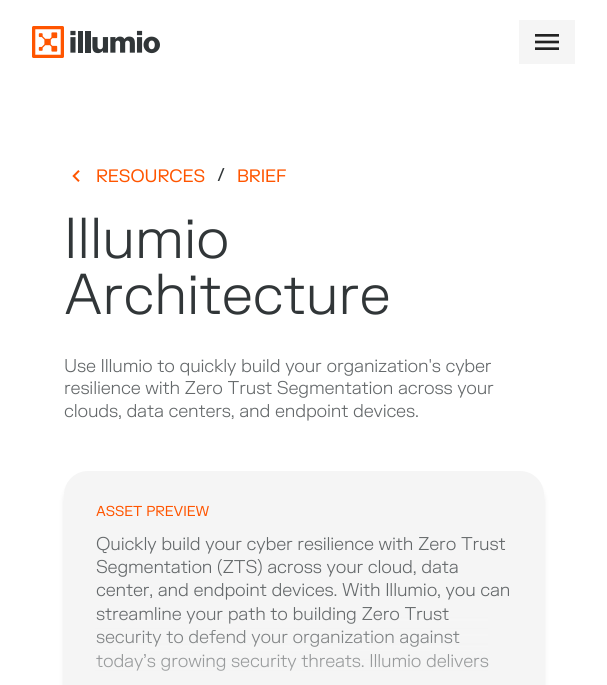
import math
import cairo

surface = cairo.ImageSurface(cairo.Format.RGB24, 607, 685)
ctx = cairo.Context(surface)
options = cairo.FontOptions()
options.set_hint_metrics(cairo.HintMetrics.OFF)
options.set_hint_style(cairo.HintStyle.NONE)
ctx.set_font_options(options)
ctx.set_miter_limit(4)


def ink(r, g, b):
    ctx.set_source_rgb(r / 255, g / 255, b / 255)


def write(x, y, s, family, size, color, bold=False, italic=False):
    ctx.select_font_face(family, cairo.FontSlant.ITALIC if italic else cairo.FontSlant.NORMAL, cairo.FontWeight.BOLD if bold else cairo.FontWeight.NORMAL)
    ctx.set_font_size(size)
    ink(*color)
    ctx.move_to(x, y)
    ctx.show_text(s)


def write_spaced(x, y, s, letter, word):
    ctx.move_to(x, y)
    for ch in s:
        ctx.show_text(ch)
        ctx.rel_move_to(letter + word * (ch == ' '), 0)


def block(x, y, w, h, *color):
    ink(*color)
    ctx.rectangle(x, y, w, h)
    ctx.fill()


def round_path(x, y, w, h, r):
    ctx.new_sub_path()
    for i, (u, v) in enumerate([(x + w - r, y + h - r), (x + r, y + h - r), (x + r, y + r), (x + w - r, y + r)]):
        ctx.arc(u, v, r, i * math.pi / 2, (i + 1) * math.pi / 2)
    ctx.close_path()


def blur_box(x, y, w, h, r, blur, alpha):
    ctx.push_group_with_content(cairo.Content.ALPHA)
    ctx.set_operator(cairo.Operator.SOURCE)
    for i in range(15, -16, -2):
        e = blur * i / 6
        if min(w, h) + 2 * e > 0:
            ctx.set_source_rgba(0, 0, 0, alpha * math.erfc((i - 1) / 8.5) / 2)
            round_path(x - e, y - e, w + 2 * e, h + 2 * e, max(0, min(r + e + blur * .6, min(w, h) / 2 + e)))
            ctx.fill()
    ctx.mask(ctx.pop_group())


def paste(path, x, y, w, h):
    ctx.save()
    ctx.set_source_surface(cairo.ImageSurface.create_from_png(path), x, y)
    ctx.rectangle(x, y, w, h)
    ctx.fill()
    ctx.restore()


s1 = dict(family="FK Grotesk", size=17.5, color=(255, 85, 0))
s2 = dict(family="FK Grotesk", size=18, color=(49, 54, 56))
s3 = dict(family="FK Grotesk Light", size=56, color=(49, 54, 56))
s4 = dict(family="FK Grotesk", size=14, color=(255, 85, 0))

ink(255, 255, 255)
ctx.paint()
paste("pic1.png", 32, 26, 128, 32)
block(519, 20, 56, 44, 245, 245, 245)
paste("pic2.png", 535, 34, 24, 16)
paste("pic3.png", 72, 170, 8, 12)
write(96, 182, "RESOURCES", **s1)
write(217, 181, "/", **s2)
write(237, 182, "BRIEF", **s1)
write(64, 258, "Illumio", **s3)
write(64, 314, "Architecture", **s3)
ctx.set_font_size(18)
ink(100, 104, 106)
write_spaced(64, 372, "Use Illumio to quickly build your organization's cyber", -0.18, 0)
write_spaced(64, 394, "resilience with Zero Trust Segmentation across your", -0.18, 0)
write_spaced(64, 417, "clouds, data centers, and endpoint devices.", -0.18, 0)
ink(0, 0, 0)
blur_box(68, 481, 472, 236, 20, 4, 0.3)
ink(245, 245, 245)
round_path(64, 471, 480, 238, 24)
ctx.fill()
write(96, 516, "ASSET PREVIEW", **s4)
ctx.select_font_face("FK Grotesk Light")
ctx.set_font_size(18)
ink(100, 104, 106)
write_spaced(96, 550, "Quickly build your cyber resilience with Zero Trust", -0.18, 0)
write_spaced(96, 573, "Segmentation (ZTS) across your cloud, data", -0.18, 0)
write_spaced(96, 596, "center, and endpoint devices. With Illumio, you can", -0.18, 0)
write_spaced(96, 620, "streamline your path to building Zero Trust", -0.18, 0)
write_spaced(96, 643, "security to defend your organization against", -0.18, 0)
write_spaced(96, 667, "today’s growing security threats. Illumio delivers", -0.18, 0)
gradient = cairo.LinearGradient(304, 611, 304, 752)
gradient.add_color_stop_rgba(0, 0.961, 0.961, 0.961, 0)
gradient.add_color_stop_rgba(1, 0.961, 0.961, 0.961, 1)
ctx.set_source(gradient)
ctx.rectangle(95, 614, 393, 57)
ctx.fill()
surface.write_to_png("screenshot.png")
